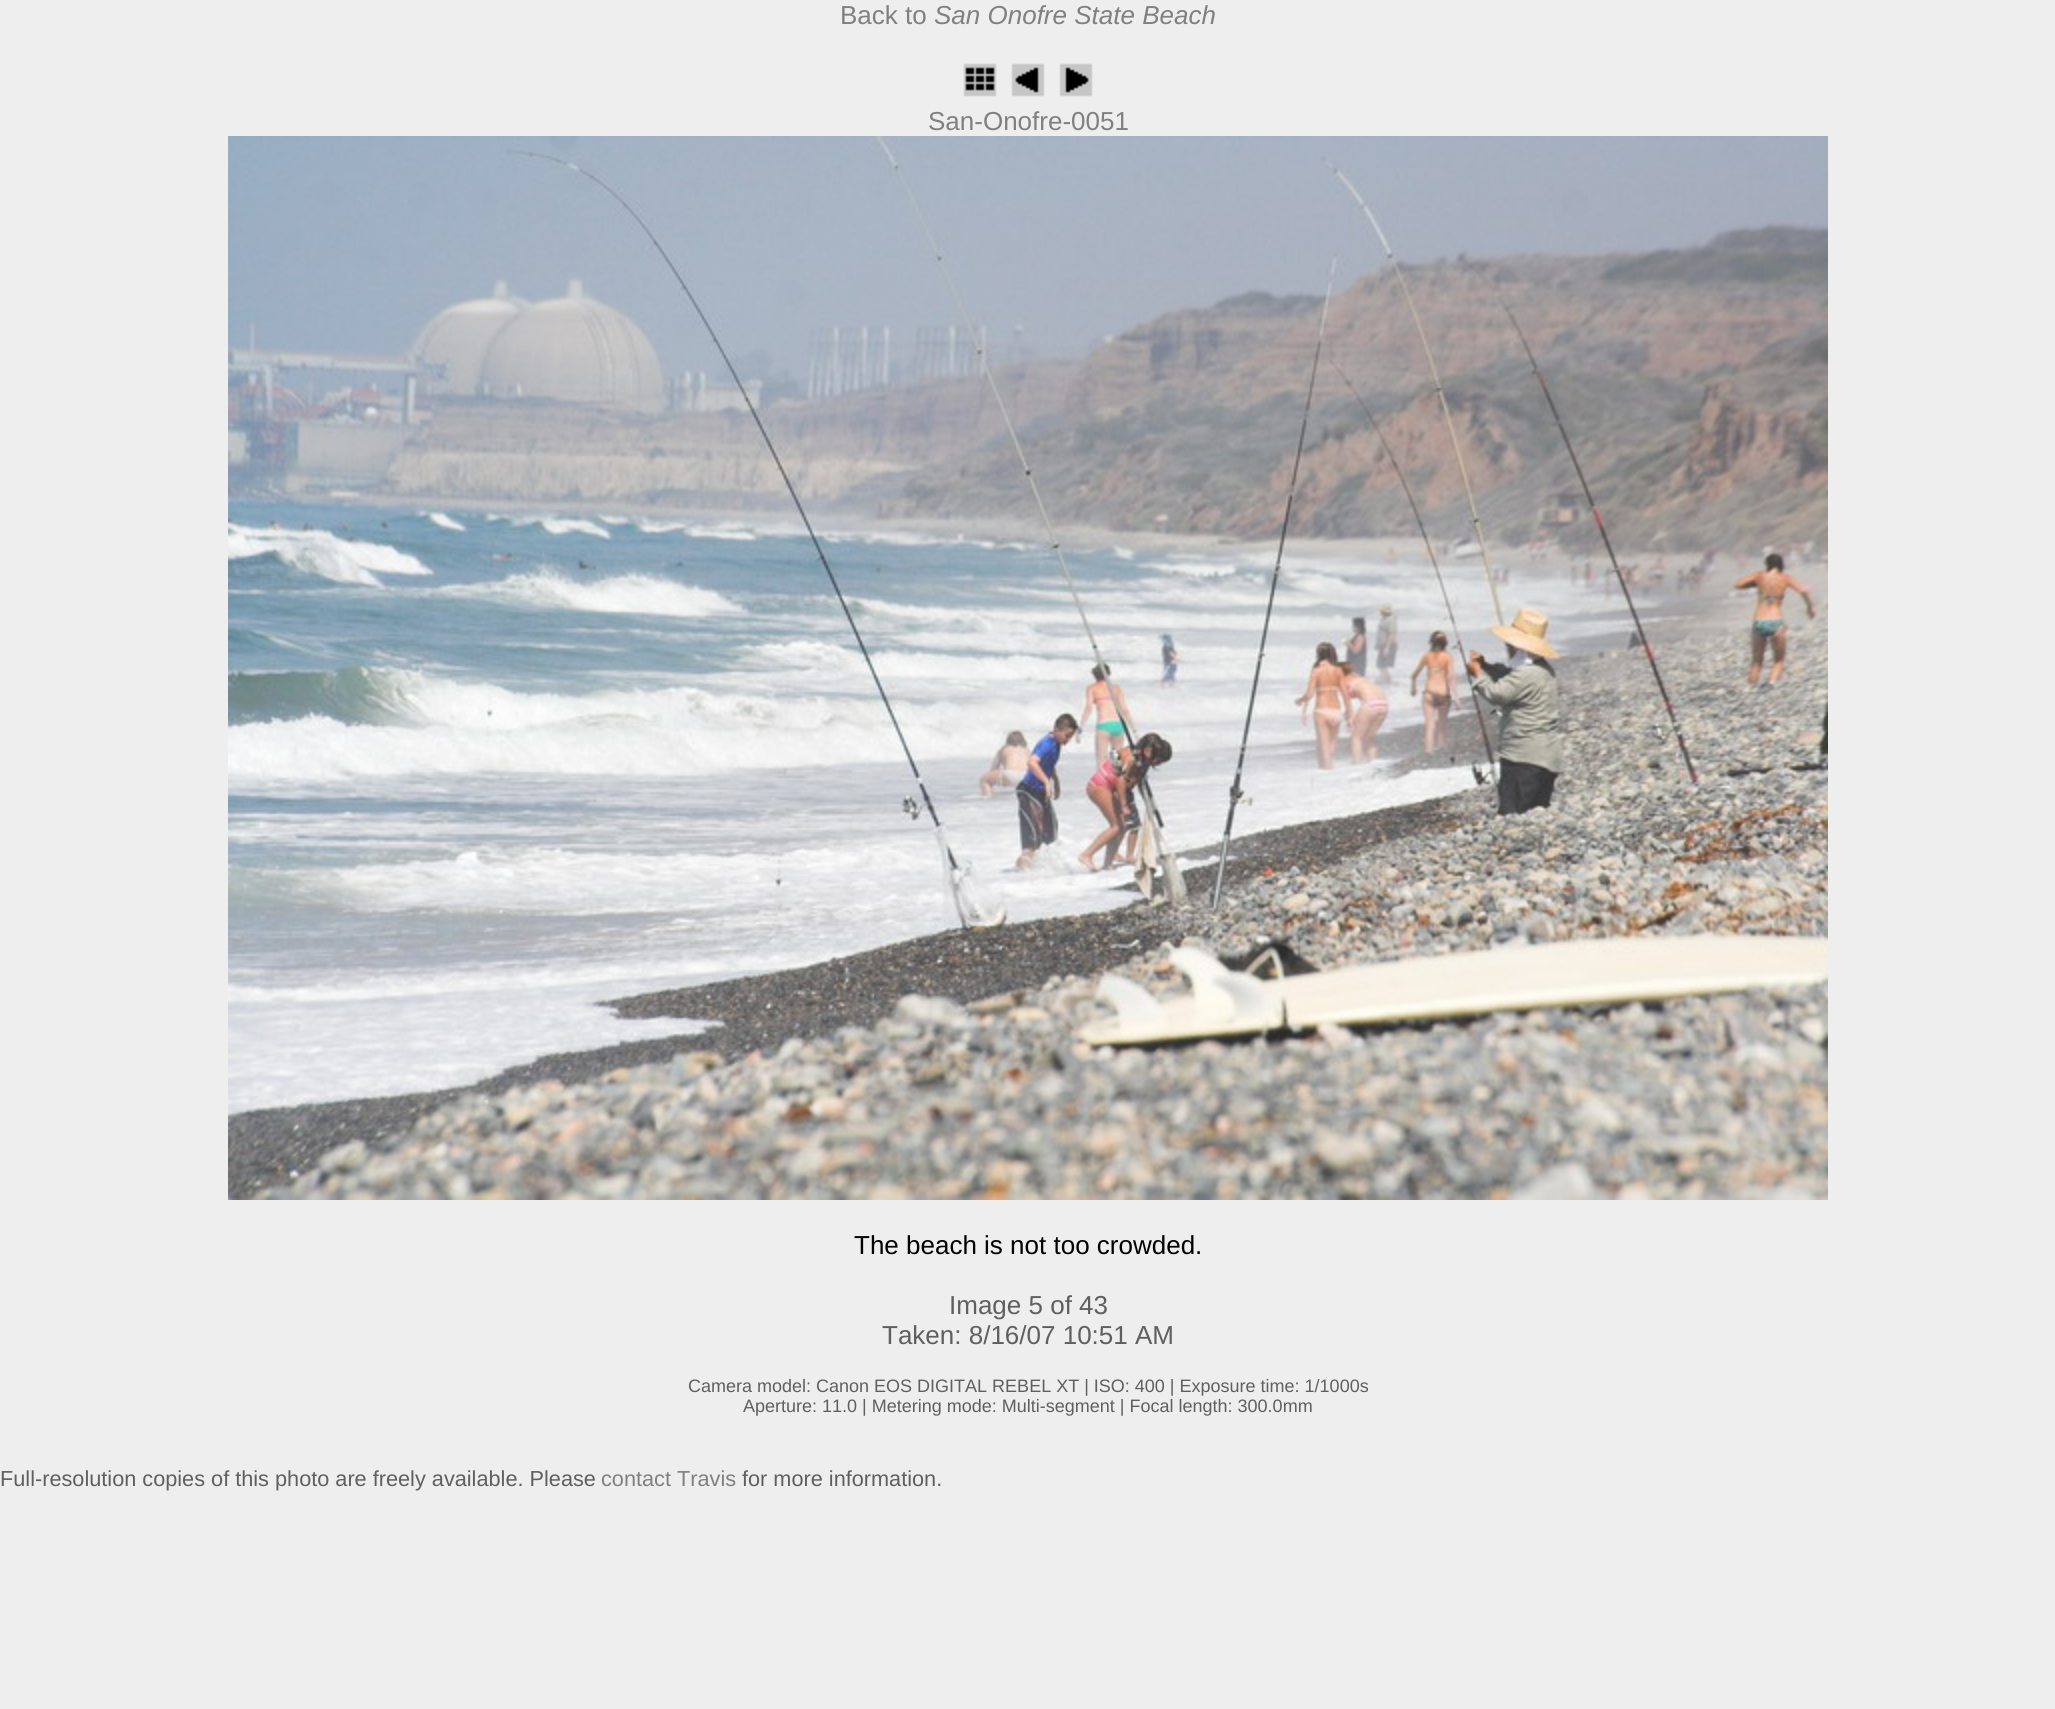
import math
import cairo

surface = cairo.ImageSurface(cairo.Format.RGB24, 2055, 1709)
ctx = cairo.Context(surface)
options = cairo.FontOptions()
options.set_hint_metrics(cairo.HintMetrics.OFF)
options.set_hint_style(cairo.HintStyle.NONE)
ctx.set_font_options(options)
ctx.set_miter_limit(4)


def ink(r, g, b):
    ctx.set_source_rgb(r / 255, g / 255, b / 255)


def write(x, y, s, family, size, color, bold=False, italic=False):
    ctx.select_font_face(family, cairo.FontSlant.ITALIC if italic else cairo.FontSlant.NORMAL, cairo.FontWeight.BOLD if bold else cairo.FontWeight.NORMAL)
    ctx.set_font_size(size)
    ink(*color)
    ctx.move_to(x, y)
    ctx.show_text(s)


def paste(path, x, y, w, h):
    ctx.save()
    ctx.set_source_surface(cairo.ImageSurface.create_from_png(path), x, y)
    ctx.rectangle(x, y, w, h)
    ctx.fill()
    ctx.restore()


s1 = dict(family="Liberation Sans", size=26, color=(128, 128, 128))
s2 = dict(family="Liberation Sans", size=26, color=(128, 128, 128), italic=True)
s3 = dict(family="Liberation Sans", size=26, color=(0, 0, 0))
s4 = dict(family="Liberation Sans", size=26, color=(95, 95, 95))
s5 = dict(family="Liberation Sans", size=18, color=(95, 95, 95))
s6 = dict(family="Liberation Sans", size=21.7, color=(95, 95, 95))
s7 = dict(family="Liberation Sans", size=21.7, color=(128, 128, 128))

ink(238, 238, 238)
ctx.paint()
write(840, 24, "Back to", **s1)
write(934, 24, "San Onofre State Beach", **s2)
paste("pic1.png", 963, 63, 34, 34)
paste("pic2.png", 1011, 63, 34, 34)
paste("pic3.png", 1059, 63, 34, 34)
write(928, 130, "San-Onofre-0051", **s1)
paste("pic4.png", 228, 136, 1600, 1064)
write(854, 1254, "The beach is not too crowded.", **s3)
write(949, 1314, "Image 5 of 43", **s4)
write(882, 1344, "Taken: 8/16/07 10:51 AM", **s4)
write(688, 1392, "Camera model: Canon EOS DIGITAL REBEL XT | ISO: 400 | Exposure time: 1/1000s", **s5)
write(743, 1412, "Aperture: 11.0 | Metering mode: Multi-segment | Focal length: 300.0mm", **s5)
write(0, 1486, "Full-resolution copies of this photo are freely available. Please", **s6)
write(601, 1486, "contact Travis", **s7)
write(742, 1486, "for more information.", **s6)
surface.write_to_png("screenshot.png")
